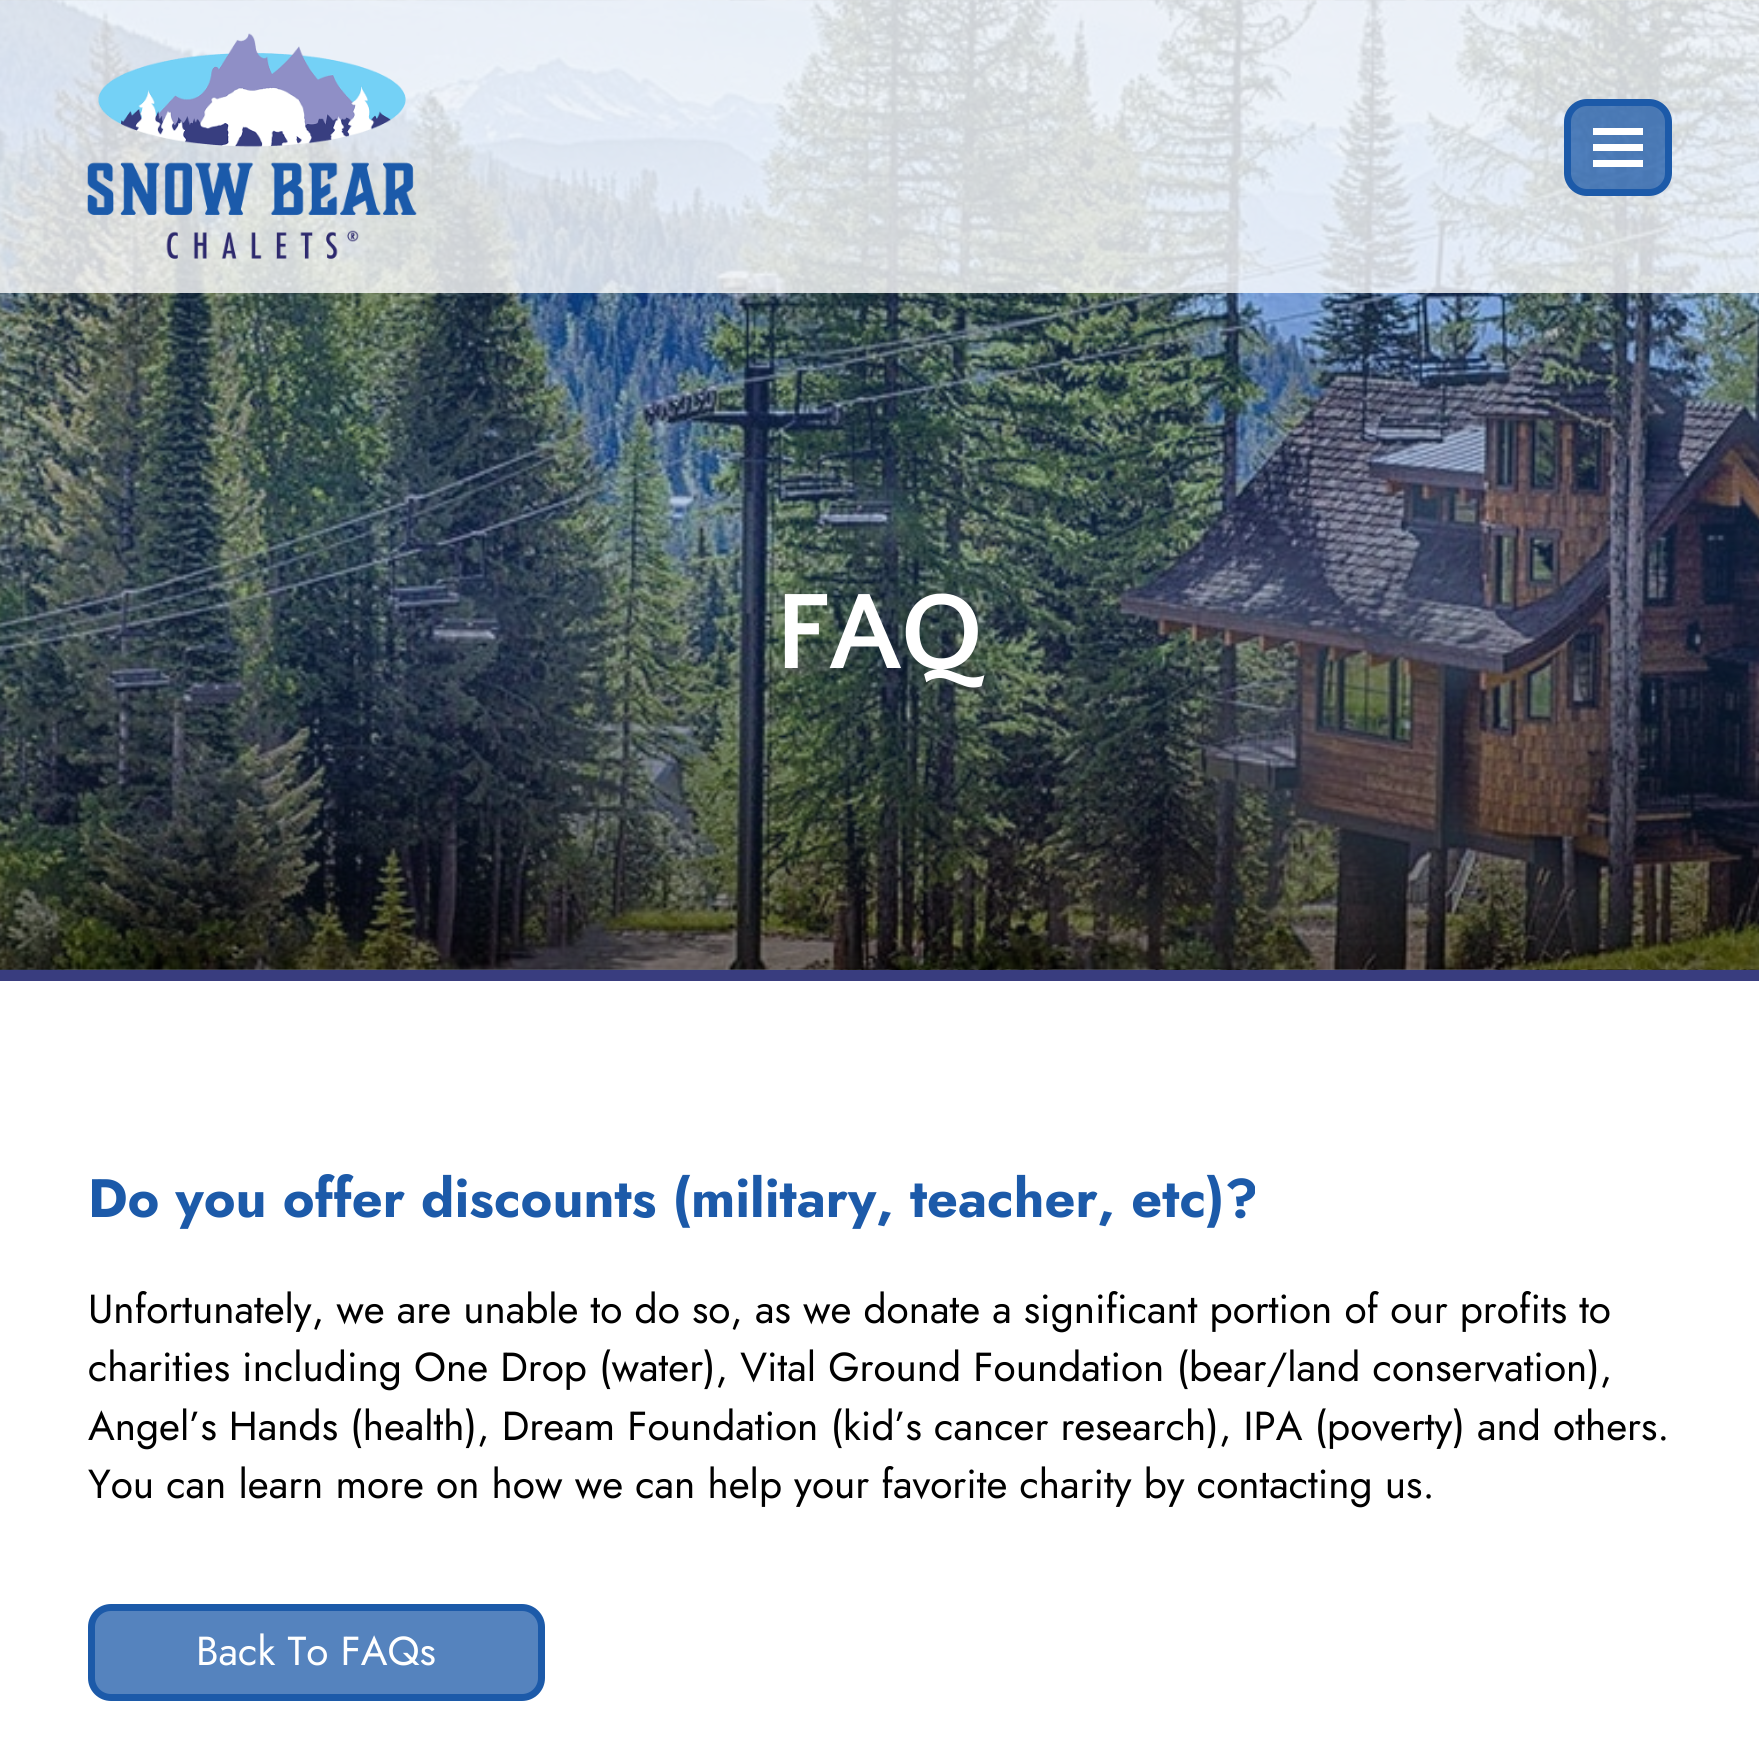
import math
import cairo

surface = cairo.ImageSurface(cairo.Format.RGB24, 1759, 1763)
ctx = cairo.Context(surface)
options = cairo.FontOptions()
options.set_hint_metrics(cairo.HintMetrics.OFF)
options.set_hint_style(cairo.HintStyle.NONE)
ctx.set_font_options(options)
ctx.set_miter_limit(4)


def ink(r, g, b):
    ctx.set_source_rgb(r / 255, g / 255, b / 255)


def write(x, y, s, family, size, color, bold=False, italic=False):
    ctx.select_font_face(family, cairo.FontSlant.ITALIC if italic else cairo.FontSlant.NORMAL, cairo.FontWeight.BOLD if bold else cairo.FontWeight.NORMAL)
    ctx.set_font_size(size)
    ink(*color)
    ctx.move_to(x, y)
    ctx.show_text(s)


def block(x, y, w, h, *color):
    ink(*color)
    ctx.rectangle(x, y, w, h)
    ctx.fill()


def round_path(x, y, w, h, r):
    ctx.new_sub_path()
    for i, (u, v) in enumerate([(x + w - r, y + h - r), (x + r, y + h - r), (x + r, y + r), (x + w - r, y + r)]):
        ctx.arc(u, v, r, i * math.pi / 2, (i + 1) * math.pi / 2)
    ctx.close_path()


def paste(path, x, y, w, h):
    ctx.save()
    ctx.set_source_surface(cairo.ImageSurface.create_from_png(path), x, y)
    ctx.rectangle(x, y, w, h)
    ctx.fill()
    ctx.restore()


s1 = dict(family="Quattrocento Sans", size=112, color=(255, 255, 255), bold=True)
s2 = dict(family="Jost", size=54, color=(28, 90, 169), bold=True)
s3 = dict(family="Jost", size=40.5, color=(0, 0, 0))
s4 = dict(family="Jost", size=40.5, color=(255, 255, 255))

ink(255, 255, 255)
ctx.paint()
paste("pic2.png", 0, 0, 1759, 970)
ctx.set_source_rgba(1, 1, 1, 0.8)
ctx.rectangle(0, 0, 1759, 293)
ctx.fill()
paste("pic1.png", 87, 33, 330, 226)
ctx.set_source_rgba(0.11, 0.349, 0.659, 0.75)
round_path(1567.5, 102.5, 101, 90, 19.5)
ctx.fill_preserve()
ink(28, 90, 169)
ctx.set_line_width(7)
ctx.stroke()
block(1593, 144, 50, 7, 255, 255, 255)
block(1593, 128, 50, 7, 255, 255, 255)
block(1593, 160, 50, 7, 255, 255, 255)
block(0, 970, 1759, 11, 57, 61, 127)
write(775, 668, "FAQ", **s1)
write(88, 1217, "Do you offer discounts (military, teacher, etc)?", **s2)
write(88, 1323, "Unfortunately, we are unable to do so, as we donate a significant portion of our profits to", **s3)
write(88, 1381, "charities including One Drop (water), Vital Ground Foundation (bear/land conservation),", **s3)
write(88, 1440, "Angel’s Hands (health), Dream Foundation (kid’s cancer research), IPA (poverty) and others.", **s3)
write(88, 1498, "You can learn more on how we can help your favorite charity by contacting us.", **s3)
ink(85, 131, 190)
round_path(91.5, 1607.5, 450, 90, 19.5)
ctx.fill_preserve()
ink(28, 90, 169)
ctx.stroke()
write(196, 1665, "Back To FAQs", **s4)
surface.write_to_png("screenshot.png")
